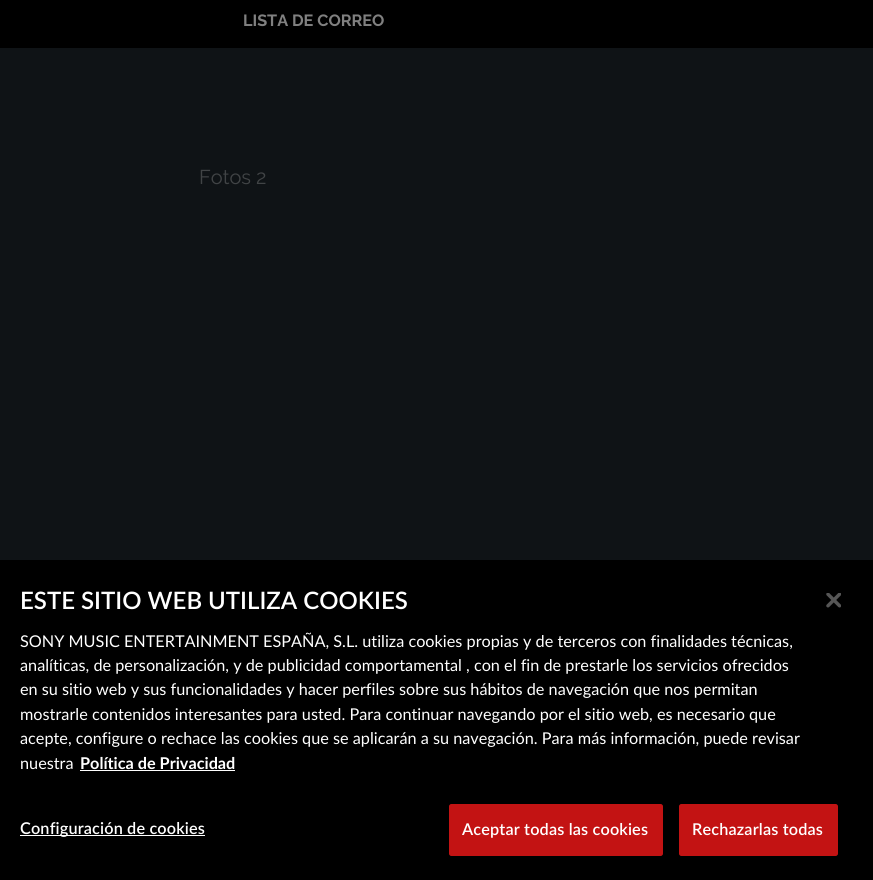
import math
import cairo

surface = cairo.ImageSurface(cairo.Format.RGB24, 873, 880)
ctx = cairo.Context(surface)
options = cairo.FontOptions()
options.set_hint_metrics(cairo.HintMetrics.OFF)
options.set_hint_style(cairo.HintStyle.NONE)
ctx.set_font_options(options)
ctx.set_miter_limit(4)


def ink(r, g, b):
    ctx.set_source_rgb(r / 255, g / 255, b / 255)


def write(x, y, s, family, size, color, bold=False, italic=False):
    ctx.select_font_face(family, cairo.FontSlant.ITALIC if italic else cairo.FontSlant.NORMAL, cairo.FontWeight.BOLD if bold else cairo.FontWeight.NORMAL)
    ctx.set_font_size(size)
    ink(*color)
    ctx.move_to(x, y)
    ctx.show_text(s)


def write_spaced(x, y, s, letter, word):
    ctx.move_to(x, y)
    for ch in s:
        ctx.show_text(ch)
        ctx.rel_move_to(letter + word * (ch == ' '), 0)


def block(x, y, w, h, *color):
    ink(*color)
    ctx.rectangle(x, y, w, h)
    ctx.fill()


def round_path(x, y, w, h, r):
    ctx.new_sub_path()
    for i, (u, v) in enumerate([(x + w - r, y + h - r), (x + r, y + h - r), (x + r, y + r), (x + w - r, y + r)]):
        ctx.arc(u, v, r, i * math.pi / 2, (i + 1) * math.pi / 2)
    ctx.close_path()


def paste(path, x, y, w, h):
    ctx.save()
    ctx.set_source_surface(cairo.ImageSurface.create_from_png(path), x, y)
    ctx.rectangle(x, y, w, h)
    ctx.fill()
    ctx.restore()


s1 = dict(family="Raleway", size=16.25, color=(128, 128, 128), bold=True)
s2 = dict(family="Raleway", size=20, color=(65, 68, 70))
s3 = dict(family="Lato SemiBold", size=24, color=(255, 255, 255))
s4 = dict(family="Lato", size=16.25, color=(255, 255, 255))
s5 = dict(family="Lato", size=16.25, color=(255, 255, 255), bold=True)

ink(15, 19, 22)
ctx.paint()
block(0, 0, 873, 48, 0, 0, 0)
write(243, 26, "LISTA DE CORREO", **s1)
write(199, 184, "Fotos 2", **s2)
block(0, 560, 873, 320, 0, 0, 0)
write(20, 609, "ESTE SITIO WEB UTILIZA COOKIES", **s3)
write(20, 647, "SONY MUSIC ENTERTAINMENT ESPAÑA, S.L. utiliza cookies propias y de terceros con finalidades técnicas,", **s4)
write(20, 671, "analíticas, de personalización, y de publicidad comportamental , con el fin de prestarle los servicios ofrecidos", **s4)
write(20, 695, "en su sitio web y sus funcionalidades y hacer perfiles sobre sus hábitos de navegación que nos permitan", **s4)
write(20, 720, "mostrarle contenidos interesantes para usted. Para continuar navegando por el sitio web, es necesario que", **s4)
write(20, 744, "acepte, configure o rechace las cookies que se aplicarán a su navegación. Para más información, puede revisar", **s4)
write(20, 769, "nuestra", **s4)
write(80, 769, "Política de Privacidad", **s5)
block(80, 770, 155, 1, 255, 255, 255)
block(20, 835, 185, 1, 255, 255, 255)
ctx.select_font_face("Lato SemiBold")
write_spaced(20, 834, "Configuración de cookies", 0.15, 0)
ink(195, 19, 19)
round_path(449.5, 804.5, 213, 51, 2)
ctx.fill_preserve()
ctx.set_line_width(1)
ctx.stroke()
ink(255, 255, 255)
write_spaced(462, 835, "Aceptar todas las cookies", 0.15, 0)
ink(195, 19, 19)
round_path(679.5, 804.5, 158, 51, 2)
ctx.fill_preserve()
ctx.stroke()
ink(255, 255, 255)
write_spaced(692, 835, "Rechazarlas todas", 0.15, 0)
paste("pic1.png", 826, 593, 15, 15)
surface.write_to_png("screenshot.png")
